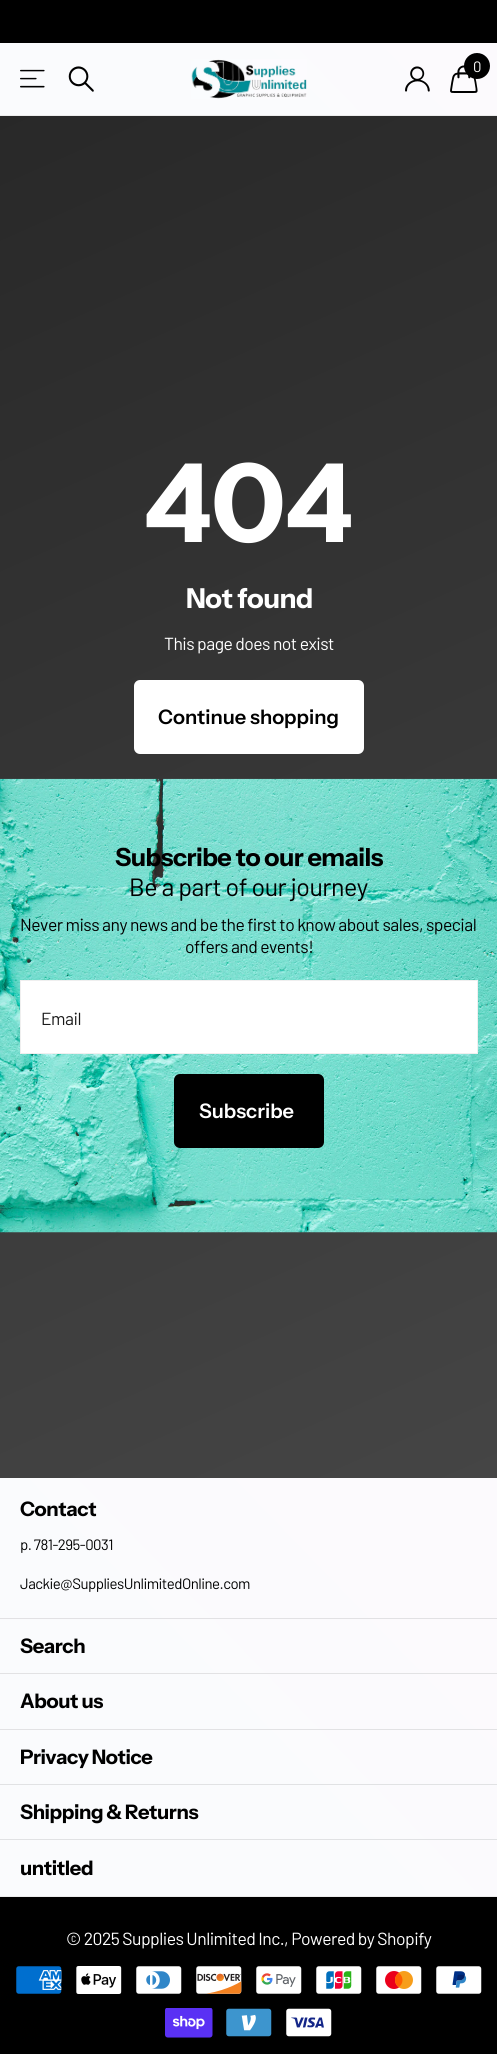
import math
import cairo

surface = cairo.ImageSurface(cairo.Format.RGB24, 497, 2054)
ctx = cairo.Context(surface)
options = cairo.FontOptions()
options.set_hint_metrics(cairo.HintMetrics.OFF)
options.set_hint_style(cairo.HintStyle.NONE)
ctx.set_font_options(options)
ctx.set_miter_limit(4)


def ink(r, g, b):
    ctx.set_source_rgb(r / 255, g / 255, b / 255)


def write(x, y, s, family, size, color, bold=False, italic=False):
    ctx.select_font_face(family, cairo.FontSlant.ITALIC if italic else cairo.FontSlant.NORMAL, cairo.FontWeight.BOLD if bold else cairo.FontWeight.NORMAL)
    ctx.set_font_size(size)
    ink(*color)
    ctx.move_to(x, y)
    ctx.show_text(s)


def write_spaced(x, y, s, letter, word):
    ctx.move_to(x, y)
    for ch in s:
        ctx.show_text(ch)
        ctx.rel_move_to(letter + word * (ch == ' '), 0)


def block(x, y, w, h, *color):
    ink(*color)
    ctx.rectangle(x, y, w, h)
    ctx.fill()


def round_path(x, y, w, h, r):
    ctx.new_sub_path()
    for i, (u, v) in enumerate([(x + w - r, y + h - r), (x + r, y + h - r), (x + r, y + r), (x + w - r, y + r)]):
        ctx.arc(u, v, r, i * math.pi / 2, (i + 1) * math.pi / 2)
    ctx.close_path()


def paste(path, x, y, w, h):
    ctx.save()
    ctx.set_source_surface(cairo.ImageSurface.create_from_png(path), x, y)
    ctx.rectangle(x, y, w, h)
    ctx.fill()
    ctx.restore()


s1 = dict(family="Barlow", size=15, color=(255, 255, 255))
s2 = dict(family="Instrument Sans SemiBold", size=20, color=(0, 0, 0))
s3 = dict(family="Instrument Sans SemiBold", size=20, color=(255, 255, 255))

ink(255, 255, 255)
ctx.paint()
block(0, 0, 497, 43, 0, 0, 0)
gradient = cairo.LinearGradient(91, 210, 406, -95)
gradient.add_color_stop_rgba(0.44, 0.98, 0.984, 0.992, 1)
gradient.add_color_stop_rgba(0.82, 0.988, 0.98, 0.992, 1)
gradient.add_color_stop_rgba(0.96, 0.988, 0.98, 0.992, 1)
ctx.set_source(gradient)
ctx.rectangle(0, 43, 497, 72)
ctx.fill()
block(0, 115, 497, 1, 236, 236, 236)
paste("pic1.png", 20, 69, 25, 19)
paste("pic2.png", 68, 66, 26, 26)
paste("pic3.png", 191, 59, 116, 40)
paste("pic4.png", 405, 66, 25, 26)
paste("pic5.png", 450, 65, 28, 28)
ink(0, 0, 0)
ctx.arc(477, 66, 13, 0, 2 * math.pi)
ctx.fill()
write(473, 72, "0", **s1)
gradient = cairo.LinearGradient(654, 1996, -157, 175)
gradient.add_color_stop_rgba(0.04, 0.306, 0.306, 0.306, 1)
gradient.add_color_stop_rgba(1, 0.157, 0.157, 0.157, 1)
ctx.set_source(gradient)
ctx.rectangle(0, 116, 497, 1362)
ctx.fill()
ctx.select_font_face("Instrument Sans", cairo.FontSlant.NORMAL, cairo.FontWeight.BOLD)
ctx.set_font_size(109)
ink(255, 255, 255)
write_spaced(144, 542, "404", -0.5, 0)
ctx.set_font_size(27.5)
write_spaced(186, 608, "Not found", -0.5, 0)
ctx.select_font_face("Barlow")
ctx.set_font_size(17.5)
write_spaced(164, 650, "This page does not exist", -0.53, 0)
round_path(134, 680, 230, 74, 6)
ctx.fill()
write(158, 724, "Continue shopping", **s2)
paste("pic6.png", 0, 778, 497, 455)
ctx.select_font_face("Instrument Sans", cairo.FontSlant.NORMAL, cairo.FontWeight.BOLD)
ctx.set_font_size(25)
write_spaced(115, 866, "Subscribe to our emails", -0.5, 0)
ctx.select_font_face("Barlow")
write_spaced(129, 896, "Be a part of our journey", -0.5, 0)
ctx.set_font_size(17.5)
write_spaced(20, 931, "Never miss any news and be the first to know about sales, special", -0.53, 0)
write_spaced(185, 953, "offers and events!", -0.53, 0)
ink(255, 255, 255)
ctx.rectangle(20.5, 980.5, 457, 73)
ctx.fill_preserve()
ink(239, 239, 239)
ctx.set_line_width(1)
ctx.stroke()
ink(26, 26, 26)
write_spaced(41, 1025, "Email", -0.5, 0)
ink(0, 0, 0)
round_path(174, 1074, 150, 74, 6)
ctx.fill()
write(199, 1118, "Subscribe", **s3)
gradient = cairo.LinearGradient(-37, 2042, 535, 1490)
gradient.add_color_stop_rgba(0.44, 0.98, 0.984, 0.992, 1)
gradient.add_color_stop_rgba(0.82, 0.988, 0.98, 0.992, 1)
gradient.add_color_stop_rgba(0.96, 0.988, 0.98, 0.992, 1)
ctx.set_source(gradient)
ctx.rectangle(0, 1478, 497, 418)
ctx.fill()
ctx.select_font_face("Instrument Sans", cairo.FontSlant.NORMAL, cairo.FontWeight.BOLD)
ink(0, 0, 0)
write_spaced(20, 1516, "Contact", -0.4, 0)
ctx.select_font_face("Barlow")
ctx.set_font_size(15)
write_spaced(20, 1550, "p. 781-295-0031", -0.53, 0)
write_spaced(20, 1589, "Jackie@SuppliesUnlimitedOnline.com", -0.53, 0)
block(0, 1618, 497, 1, 226, 225, 228)
ctx.select_font_face("Instrument Sans", cairo.FontSlant.NORMAL, cairo.FontWeight.BOLD)
ctx.set_font_size(20)
ink(0, 0, 0)
write_spaced(20, 1653, "Search", -0.4, 0)
block(0, 1673, 497, 1, 226, 226, 228)
ink(0, 0, 0)
write_spaced(20, 1708, "About us", -0.4, 0)
block(0, 1729, 497, 1, 226, 226, 228)
ink(0, 0, 0)
write_spaced(20, 1764, "Privacy Notice", -0.4, 0)
block(0, 1784, 497, 1, 225, 226, 228)
ink(0, 0, 0)
write_spaced(20, 1819, "Shipping & Returns", -0.4, 0)
block(0, 1839, 497, 1, 225, 226, 228)
ink(0, 0, 0)
write_spaced(20, 1875, "untitled", -0.4, 0)
block(0, 1897, 497, 157, 0, 0, 0)
block(0, 1896, 497, 1, 236, 236, 236)
ctx.select_font_face("Barlow")
ctx.set_font_size(17.55)
ink(255, 255, 255)
write_spaced(66, 1945, "© 2025 Supplies Unlimited Inc., Powered by Shopify", -0.53, 0)
paste("pic7.png", 16, 1966, 46, 28)
paste("pic8.png", 76, 1966, 46, 28)
paste("pic9.png", 136, 1966, 46, 28)
paste("pic10.png", 196, 1966, 46, 28)
paste("pic11.png", 256, 1966, 46, 28)
paste("pic12.png", 316, 1966, 46, 28)
paste("pic13.png", 376, 1966, 46, 28)
paste("pic14.png", 436, 1966, 46, 28)
paste("pic15.png", 165, 2008, 48, 30)
paste("pic16.png", 226, 2008, 46, 29)
paste("pic17.png", 286, 2008, 46, 29)
surface.write_to_png("screenshot.png")
